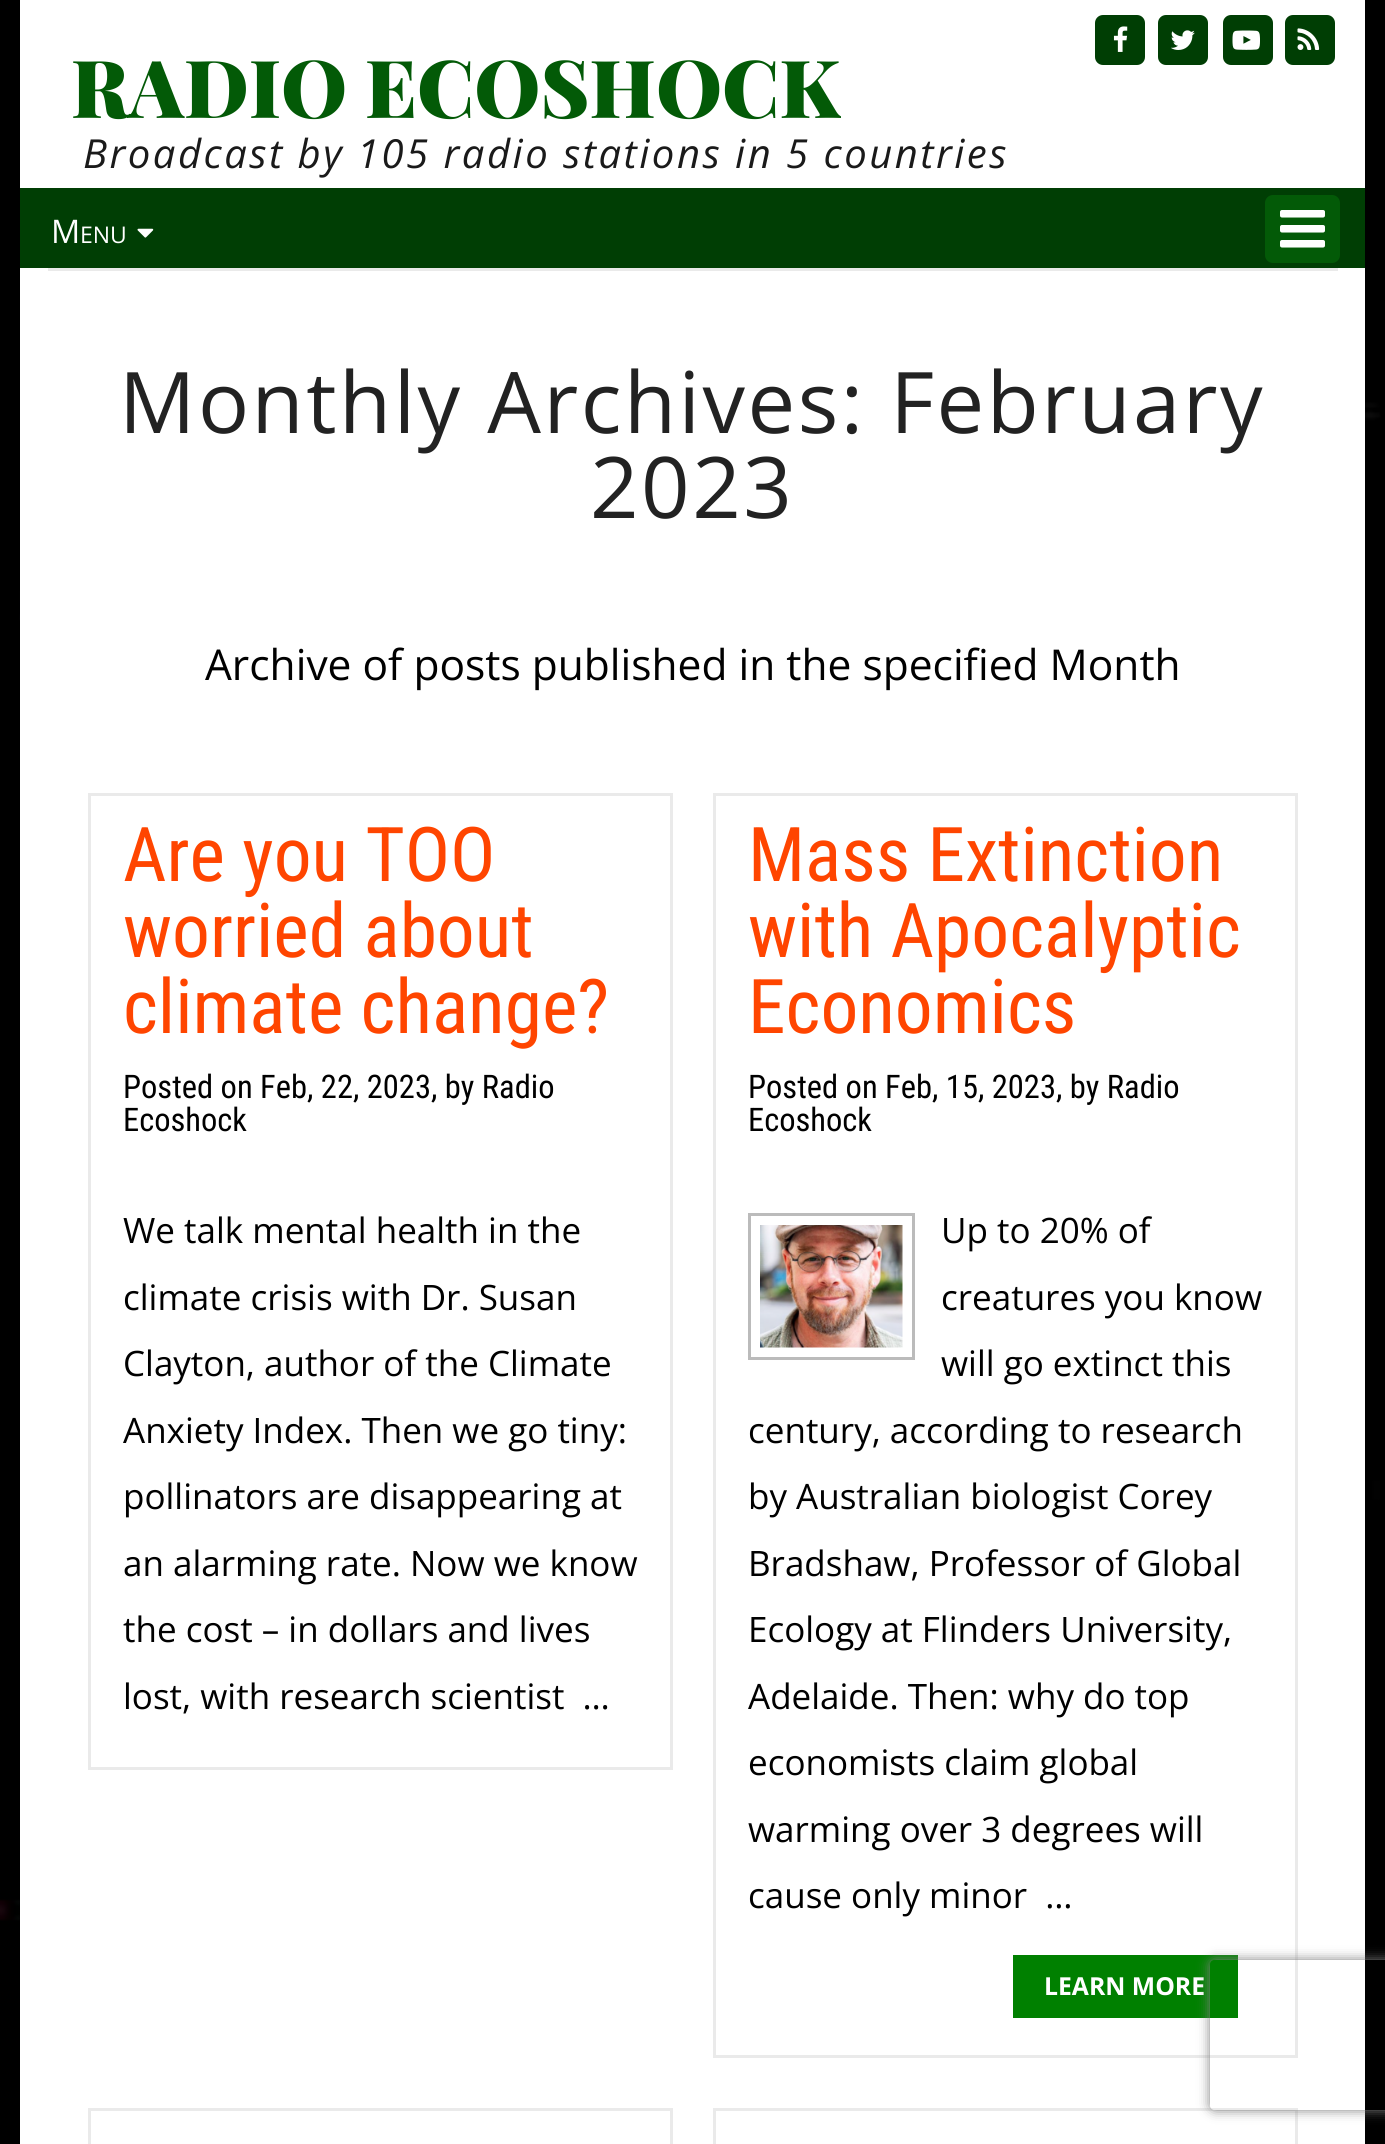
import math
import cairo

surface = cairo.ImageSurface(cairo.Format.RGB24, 1385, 2144)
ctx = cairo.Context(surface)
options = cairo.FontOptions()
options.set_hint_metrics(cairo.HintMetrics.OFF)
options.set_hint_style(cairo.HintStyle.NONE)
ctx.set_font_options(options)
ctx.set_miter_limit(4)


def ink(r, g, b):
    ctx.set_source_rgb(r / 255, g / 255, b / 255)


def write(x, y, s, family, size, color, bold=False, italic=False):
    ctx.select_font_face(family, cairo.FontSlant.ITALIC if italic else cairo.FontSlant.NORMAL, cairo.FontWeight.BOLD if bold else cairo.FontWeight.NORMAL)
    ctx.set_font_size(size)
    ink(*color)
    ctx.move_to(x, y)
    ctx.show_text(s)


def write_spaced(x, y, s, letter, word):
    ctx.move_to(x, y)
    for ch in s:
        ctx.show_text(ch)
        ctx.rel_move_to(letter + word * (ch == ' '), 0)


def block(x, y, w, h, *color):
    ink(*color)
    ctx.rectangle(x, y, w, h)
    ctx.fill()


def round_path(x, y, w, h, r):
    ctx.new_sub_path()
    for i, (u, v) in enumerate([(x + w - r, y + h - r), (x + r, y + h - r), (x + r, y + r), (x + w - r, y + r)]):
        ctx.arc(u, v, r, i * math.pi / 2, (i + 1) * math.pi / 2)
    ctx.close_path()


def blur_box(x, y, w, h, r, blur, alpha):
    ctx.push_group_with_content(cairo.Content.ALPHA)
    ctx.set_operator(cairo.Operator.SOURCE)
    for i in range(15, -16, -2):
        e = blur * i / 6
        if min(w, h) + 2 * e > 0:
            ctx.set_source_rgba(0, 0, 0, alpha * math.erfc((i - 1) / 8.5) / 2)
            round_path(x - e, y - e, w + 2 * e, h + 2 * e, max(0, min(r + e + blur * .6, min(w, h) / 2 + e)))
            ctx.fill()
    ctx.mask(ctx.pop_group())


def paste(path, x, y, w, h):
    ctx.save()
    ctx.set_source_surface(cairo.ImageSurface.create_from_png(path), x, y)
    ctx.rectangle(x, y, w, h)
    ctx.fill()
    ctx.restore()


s1 = dict(family="Playfair Display Black", size=80, color=(3, 90, 7))
s2 = dict(family="Open Sans", size=32.5, color=(255, 255, 255))
s3 = dict(family="Open Sans", size=23, color=(255, 255, 255))
s4 = dict(family="Open Sans", size=42.5, color=(0, 0, 0))
s5 = dict(family="Roboto Condensed", size=75.5, color=(255, 69, 0))
s6 = dict(family="Roboto Condensed", size=32.5, color=(0, 0, 0))
s7 = dict(family="Open Sans", size=35, color=(0, 0, 0))
s8 = dict(family="Open Sans", size=24.75, color=(255, 255, 255), bold=True)

ink(255, 255, 255)
ctx.paint()
paste("pic1.png", 0, 0, 1385, 2144)
block(20, 0, 1345, 2144, 255, 255, 255)
ink(0, 62, 4)
round_path(1096.5, 16.5, 47, 47, 6.5)
ctx.fill_preserve()
ctx.set_line_width(3)
ctx.stroke()
paste("pic2.png", 1113, 26, 15, 26)
round_path(1159.5, 16.5, 47, 47, 6.5)
ctx.fill_preserve()
ctx.stroke()
paste("pic3.png", 1171, 30, 24, 20)
round_path(1224.5, 16.5, 47, 47, 6.5)
ctx.fill_preserve()
ctx.stroke()
paste("pic4.png", 1232, 30, 28, 20)
round_path(1286.5, 16.5, 47, 47, 6.5)
ctx.fill_preserve()
ctx.stroke()
paste("pic5.png", 1297, 28, 23, 22)
write(71, 118, "RADIO ECOSHOCK", **s1)
ctx.select_font_face("Open Sans", cairo.FontSlant.ITALIC)
ctx.set_font_size(40)
ink(26, 26, 26)
write_spaced(83, 168, "Broadcast by 105 radio stations in 5 countries", 2.5, 0)
block(20, 188, 1345, 80, 0, 62, 4)
write(51, 243, "M", **s2)
write(80, 243, "ENU", **s3)
paste("pic6.png", 137, 228, 17, 10)
ink(3, 90, 7)
round_path(1265, 195, 75, 68, 8)
ctx.fill()
paste("pic7.png", 1280, 210, 45, 38)
block(48, 268, 1290, 3, 234, 234, 234)
ctx.set_font_size(85)
ink(34, 34, 34)
write_spaced(119, 433, "Monthly Archives: February", 2.5, 0)
write_spaced(590, 518, "2023", 2.5, 0)
write(205, 680, "Archive of posts published in the specified Month", **s4)
ctx.rectangle(89.5, 794.5, 582, 974)
ink(234, 234, 234)
ctx.stroke()
write(123, 881, "Are you TOO", **s5)
write(123, 957, "worried about", **s5)
write(123, 1033, "climate change?", **s5)
write(123, 1098, "Posted on Feb, 22, 2023, by Radio", **s6)
write(123, 1131, "Ecoshock", **s6)
write(123, 1243, "We talk mental health in the", **s7)
write(123, 1310, "climate crisis with Dr. Susan", **s7)
write(123, 1376, "Clayton, author of the Climate", **s7)
write(123, 1443, "Anxiety Index. Then we go tiny:", **s7)
write(123, 1509, "pollinators are disappearing at", **s7)
write(123, 1576, "an alarming rate. Now we know", **s7)
write(123, 1642, "the cost – in dollars and lives", **s7)
write(123, 1709, "lost, with research scientist  …", **s7)
ctx.rectangle(714.5, 794.5, 582, 1262)
ink(234, 234, 234)
ctx.stroke()
write(748, 881, "Mass Extinction", **s5)
write(748, 957, "with Apocalyptic", **s5)
write(748, 1033, "Economics", **s5)
write(748, 1098, "Posted on Feb, 15, 2023, by Radio", **s6)
write(748, 1131, "Ecoshock", **s6)
ctx.rectangle(749.5, 1214.5, 164, 144)
ink(187, 187, 187)
ctx.stroke()
paste("pic8.png", 760, 1225, 143, 123)
write(941, 1243, "Up to 20% of", **s7)
write(941, 1310, "creatures you know", **s7)
write(941, 1376, "will go extinct this", **s7)
write(748, 1443, "century, according to research", **s7)
write(748, 1509, "by Australian biologist Corey", **s7)
write(748, 1576, "Bradshaw, Professor of Global", **s7)
write(748, 1642, "Ecology at Flinders University,", **s7)
write(748, 1709, "Adelaide. Then: why do top", **s7)
write(748, 1775, "economists claim global", **s7)
write(748, 1842, "warming over 3 degrees will", **s7)
write(748, 1908, "cause only minor  …", **s7)
block(1013, 1955, 225, 63, 0, 128, 0)
write(1044, 1995, "LEARN MORE", **s8)
ctx.rectangle(89.5, 2109.5, 582, 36)
ink(234, 234, 234)
ctx.stroke()
ctx.rectangle(714.5, 2109.5, 582, 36)
ctx.stroke()
ctx.save()
ctx.set_fill_rule(cairo.FillRule.EVEN_ODD)
ctx.new_path()
ctx.move_to(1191, 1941)
ctx.line_to(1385, 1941)
ctx.line_to(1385, 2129)
ctx.line_to(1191, 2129)
ctx.close_path()
ctx.move_to(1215, 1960)
ctx.line_to(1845, 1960)
ctx.curve_to(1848, 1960, 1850, 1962, 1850, 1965)
ctx.line_to(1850, 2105)
ctx.curve_to(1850, 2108, 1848, 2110, 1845, 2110)
ctx.line_to(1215, 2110)
ctx.curve_to(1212, 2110, 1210, 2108, 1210, 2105)
ctx.line_to(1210, 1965)
ctx.curve_to(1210, 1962, 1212, 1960, 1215, 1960)
ctx.close_path()
ctx.clip()
ink(128, 128, 128)
blur_box(1210, 1960, 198, 150, 5, 6, 1)
ctx.restore()
surface.write_to_png("screenshot.png")
